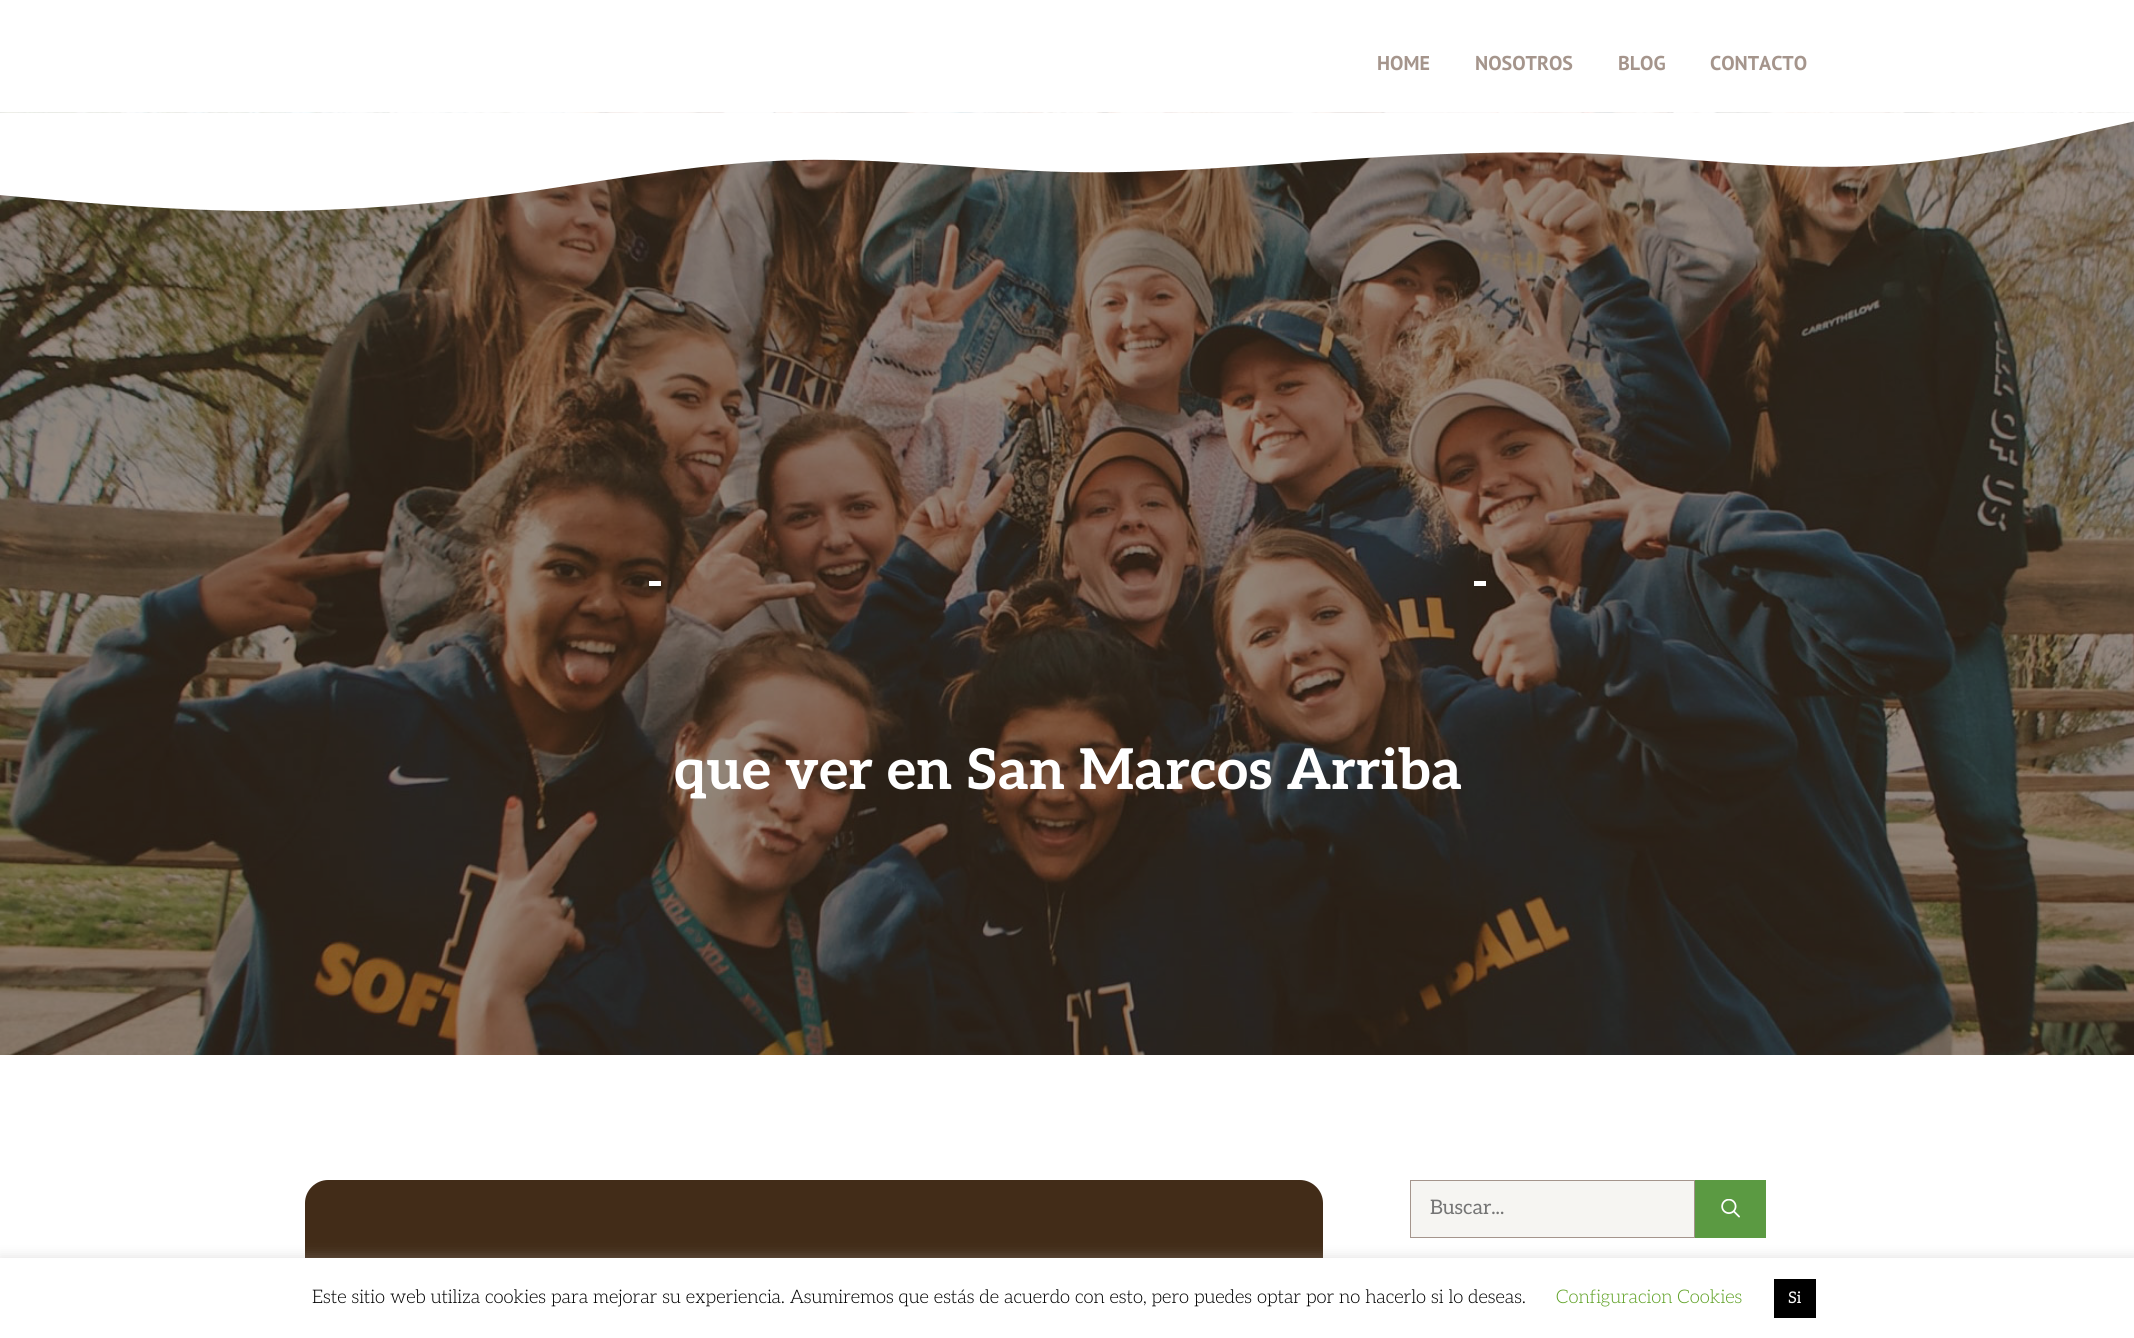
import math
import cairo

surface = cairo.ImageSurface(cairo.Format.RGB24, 2134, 1338)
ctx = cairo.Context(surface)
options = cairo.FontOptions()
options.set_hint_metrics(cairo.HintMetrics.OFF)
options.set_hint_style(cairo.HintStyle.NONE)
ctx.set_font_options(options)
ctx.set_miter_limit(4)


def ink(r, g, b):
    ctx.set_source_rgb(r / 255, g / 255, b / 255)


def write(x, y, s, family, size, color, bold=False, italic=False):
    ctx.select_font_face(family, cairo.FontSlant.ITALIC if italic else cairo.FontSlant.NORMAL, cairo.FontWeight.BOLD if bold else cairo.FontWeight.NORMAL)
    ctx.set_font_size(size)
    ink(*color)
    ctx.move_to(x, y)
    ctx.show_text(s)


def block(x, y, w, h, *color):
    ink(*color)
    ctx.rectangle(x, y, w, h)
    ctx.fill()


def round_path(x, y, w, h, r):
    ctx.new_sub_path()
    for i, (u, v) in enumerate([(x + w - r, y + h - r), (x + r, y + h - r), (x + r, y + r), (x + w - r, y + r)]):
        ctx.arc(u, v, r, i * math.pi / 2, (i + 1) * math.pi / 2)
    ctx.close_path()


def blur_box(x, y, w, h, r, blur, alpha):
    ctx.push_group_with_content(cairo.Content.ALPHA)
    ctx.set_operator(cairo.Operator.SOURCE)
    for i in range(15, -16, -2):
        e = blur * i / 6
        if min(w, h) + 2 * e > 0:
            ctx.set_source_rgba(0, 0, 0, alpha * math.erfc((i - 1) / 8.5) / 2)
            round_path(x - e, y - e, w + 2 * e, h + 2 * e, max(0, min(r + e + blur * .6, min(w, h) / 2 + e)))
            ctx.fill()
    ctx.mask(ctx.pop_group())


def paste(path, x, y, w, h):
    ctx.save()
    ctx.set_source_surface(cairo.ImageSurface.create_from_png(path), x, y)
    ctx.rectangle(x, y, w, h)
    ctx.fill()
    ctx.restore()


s1 = dict(family="PT Sans", size=20, color=(165, 149, 140), bold=True)
s2 = dict(family="Aleo", size=56.25, color=(255, 255, 255), bold=True)
s3 = dict(family="Aleo", size=20, color=(117, 117, 117))
s4 = dict(family="Aleo Light", size=18.75, color=(0, 0, 0))
s5 = dict(family="Aleo Light", size=18.75, color=(98, 163, 41))
s6 = dict(family="Aleo", size=16, color=(255, 255, 255))

ink(255, 255, 255)
ctx.paint()
write(1377, 70, "HOME", **s1)
write(1475, 70, "NOSOTROS", **s1)
write(1618, 70, "BLOG", **s1)
write(1710, 70, "CONTACTO", **s1)
block(0, 121, 2134, 934, 66, 44, 24)
paste("pic1.png", 0, 112, 2134, 943)
ctx.save()
ctx.rectangle(0, 113, 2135, 98)
ctx.clip()
ink(255, 255, 255)
ctx.new_path()
ctx.move_to(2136, 121)
ctx.line_to(2091, 131)
ctx.curve_to(2047, 142, 1958, 162, 1869, 166)
ctx.curve_to(1780, 170, 1691, 158, 1602, 154)
ctx.curve_to(1513, 150, 1424, 154, 1335, 160)
ctx.curve_to(1246, 166, 1157, 174, 1068, 172)
ctx.curve_to(978, 170, 889, 158, 800, 160)
ctx.curve_to(711, 162, 622, 178, 533, 191)
ctx.curve_to(444, 203, 355, 211, 266, 211)
ctx.curve_to(177, 211, 88, 203, 44, 199)
ctx.line_to(-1, 195)
ctx.line_to(-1, 111)
ctx.line_to(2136, 111)
ctx.close_path()
ctx.fill()
ctx.restore()
block(649, 581, 12, 5, 255, 255, 255)
block(1474, 581, 12, 5, 255, 255, 255)
write(674, 789, "que ver en San Marcos Arriba", **s2)
ink(66, 44, 24)
ctx.new_path()
ctx.move_to(328, 1180)
ctx.line_to(1300, 1180)
ctx.curve_to(1312.5, 1180, 1323, 1190.5, 1323, 1203)
ctx.line_to(1323, 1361)
ctx.line_to(305, 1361)
ctx.line_to(305, 1203)
ctx.curve_to(305, 1190.5, 315.5, 1180, 328, 1180)
ctx.close_path()
ctx.fill()
ink(246, 245, 242)
ctx.rectangle(1410.5, 1180.5, 284, 57)
ctx.fill_preserve()
ink(165, 149, 140)
ctx.set_line_width(1)
ctx.stroke()
write(1430, 1214, "Buscar...", **s3)
block(1695, 1180, 71, 58, 91, 154, 66)
paste("pic2.png", 1721, 1199, 19, 19)
ink(172, 171, 171)
blur_box(0, 1256, 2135, 82, 0, 6, 0.3)
block(0, 1258, 2134, 80, 255, 255, 255)
write(312, 1303, "Este sitio web utiliza cookies para mejorar su experiencia. Asumiremos que estás de acuerdo con esto, pero puedes optar por no hacerlo si lo deseas.", **s4)
write(1556, 1303, "Configuracion Cookies", **s5)
block(1774, 1279, 42, 39, 0, 0, 0)
write(1788, 1303, "Si", **s6)
surface.write_to_png("screenshot.png")
